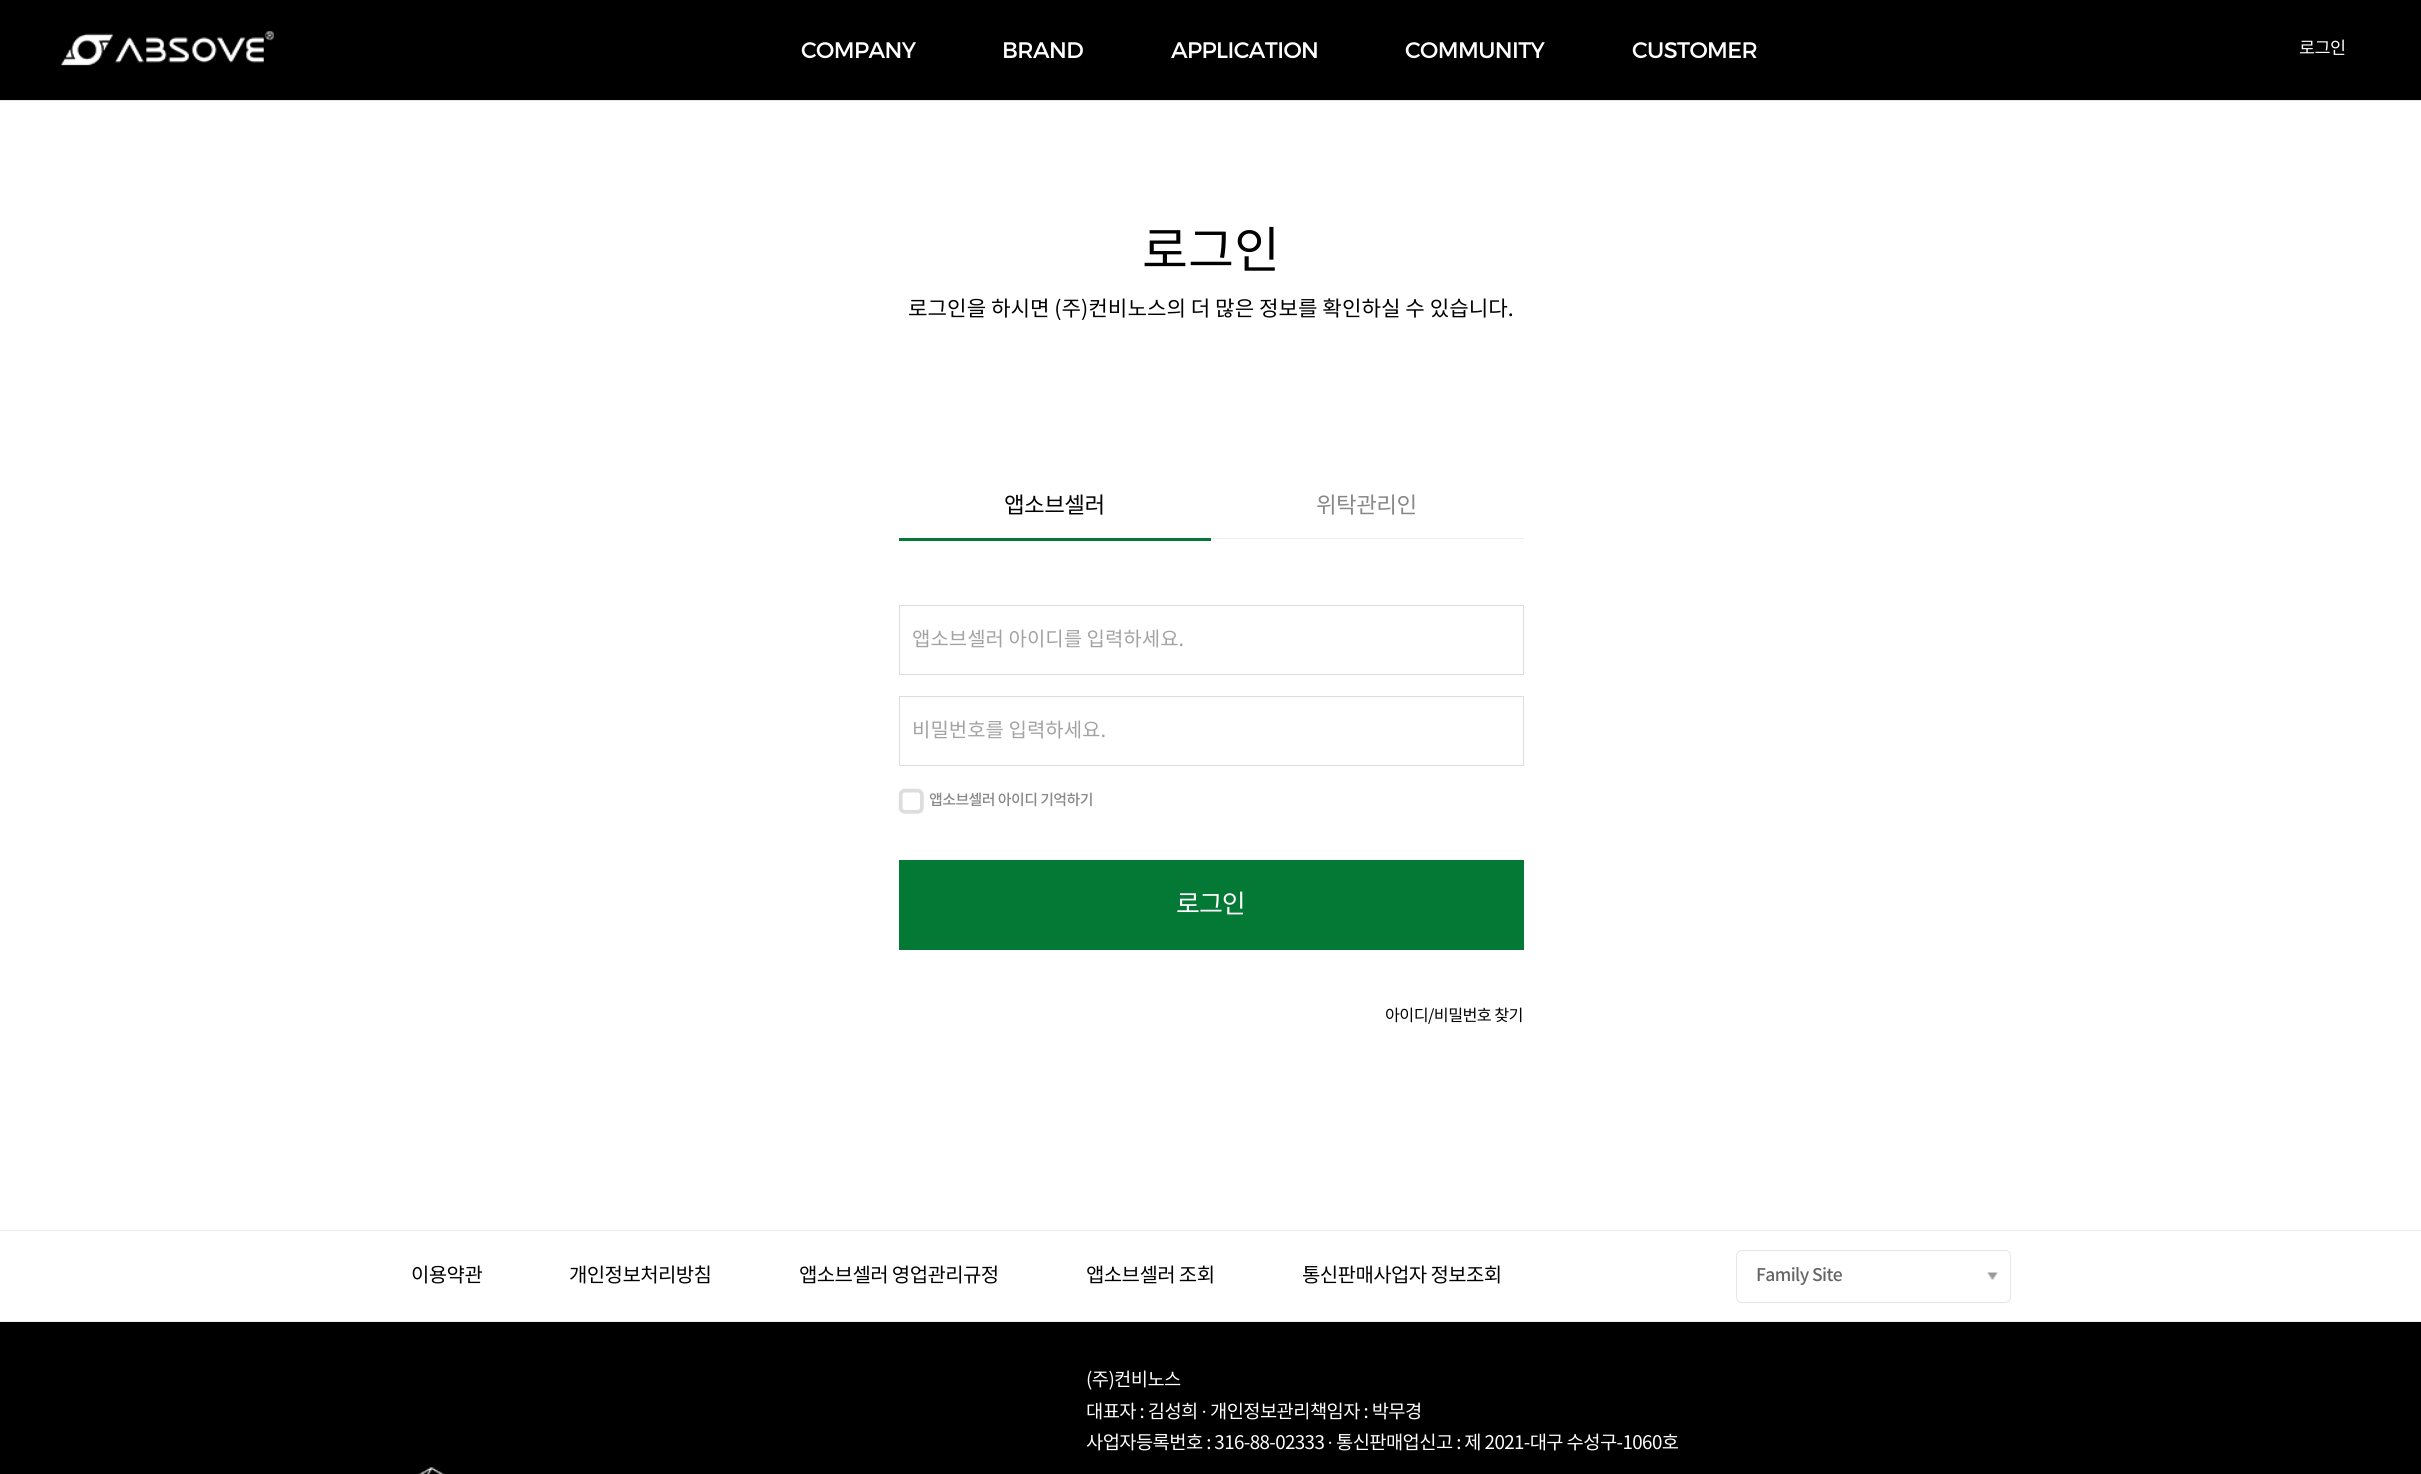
import math
import cairo

surface = cairo.ImageSurface(cairo.Format.RGB24, 2421, 1474)
ctx = cairo.Context(surface)
options = cairo.FontOptions()
options.set_hint_metrics(cairo.HintMetrics.OFF)
options.set_hint_style(cairo.HintStyle.NONE)
ctx.set_font_options(options)
ctx.set_miter_limit(4)


def ink(r, g, b):
    ctx.set_source_rgb(r / 255, g / 255, b / 255)


def write(x, y, s, family, size, color, bold=False, italic=False):
    ctx.select_font_face(family, cairo.FontSlant.ITALIC if italic else cairo.FontSlant.NORMAL, cairo.FontWeight.BOLD if bold else cairo.FontWeight.NORMAL)
    ctx.set_font_size(size)
    ink(*color)
    ctx.move_to(x, y)
    ctx.show_text(s)


def write_spaced(x, y, s, letter, word):
    ctx.move_to(x, y)
    for ch in s:
        ctx.show_text(ch)
        ctx.rel_move_to(letter + word * (ch == ' '), 0)


def block(x, y, w, h, *color):
    ink(*color)
    ctx.rectangle(x, y, w, h)
    ctx.fill()


def round_path(x, y, w, h, r):
    ctx.new_sub_path()
    for i, (u, v) in enumerate([(x + w - r, y + h - r), (x + r, y + h - r), (x + r, y + r), (x + w - r, y + r)]):
        ctx.arc(u, v, r, i * math.pi / 2, (i + 1) * math.pi / 2)
    ctx.close_path()


def paste(path, x, y, w, h):
    ctx.save()
    ctx.set_source_surface(cairo.ImageSurface.create_from_png(path), x, y)
    ctx.rectangle(x, y, w, h)
    ctx.fill()
    ctx.restore()


s1 = dict(family="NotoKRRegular", size=50, color=(0, 0, 0))
s2 = dict(family="NotoKRRegular", size=21.25, color=(0, 0, 0))
s3 = dict(family="NotoKRRegular", size=20, color=(163, 163, 163))

ink(255, 255, 255)
ctx.paint()
block(0, 100, 2421, 1, 230, 230, 230)
block(0, 0, 2421, 100, 0, 0, 0)
paste("pic1.png", 61, 31, 213, 35)
ctx.select_font_face("Montserrat")
ctx.set_font_size(22.5)
ink(255, 255, 255)
write_spaced(801, 58, "COMPANY", -0.6, 0)
write_spaced(1002, 58, "BRAND", -0.6, 0)
write_spaced(1171, 58, "APPLICATION", -0.6, 0)
write_spaced(1405, 58, "COMMUNITY", -0.6, 0)
write_spaced(1632, 58, "CUSTOMER", -0.6, 0)
ctx.select_font_face("NotoKRRegular")
ctx.set_font_size(17.5)
write_spaced(2299, 54, "로그인", -0.6, 0)
write(1142, 268, "로그인", **s1)
write(908, 316, "로그인을 하시면 (주)컨비노스의 더 많은 정보를 확인하실 수 있습니다.", **s2)
block(1210, 538, 314, 1, 238, 238, 238)
block(899, 538, 312, 3, 4, 120, 53)
ctx.set_font_size(22.5)
ink(0, 0, 0)
write_spaced(1004, 513, "앱소브셀러", -0.6, 0)
ink(136, 136, 136)
write_spaced(1316, 513, "위탁관리인", -0.6, 0)
ctx.rectangle(899.5, 605.5, 624, 69)
ink(221, 221, 221)
ctx.set_line_width(1)
ctx.stroke()
write(912, 646, "앱소브셀러 아이디를 입력하세요.", **s3)
ctx.rectangle(899.5, 696.5, 624, 69)
ink(221, 221, 221)
ctx.stroke()
write(912, 737, "비밀번호를 입력하세요.", **s3)
paste("pic2.png", 898, 788, 26, 26)
ctx.select_font_face("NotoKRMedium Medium")
ctx.set_font_size(15)
ink(136, 136, 136)
write_spaced(929, 805, "앱소브셀러 아이디 기억하기", -0.6, 0)
block(899, 860, 625, 90, 4, 120, 53)
ctx.select_font_face("NotoKRRegular")
ctx.set_font_size(26)
ink(255, 255, 255)
write_spaced(1176, 913, "로그인", -1, 0)
ctx.set_font_size(16.25)
ink(0, 0, 0)
write_spaced(1385, 1021, "아이디/비밀번호 찾기", -0.6, 0)
block(0, 1230, 2421, 1, 235, 235, 235)
ctx.set_font_size(20)
ink(0, 0, 0)
write_spaced(411, 1282, "이용약관", -0.6, 0)
write_spaced(569, 1282, "개인정보처리방침", -0.6, 0)
write_spaced(799, 1282, "앱소브셀러 영업관리규정", -0.6, 0)
write_spaced(1086, 1282, "앱소브셀러 조회", -0.6, 0)
write_spaced(1302, 1282, "통신판매사업자 정보조회", -0.6, 0)
round_path(1736.5, 1250.5, 274, 52, 5.5)
ink(229, 229, 229)
ctx.stroke()
ctx.select_font_face("NotoKRMedium Medium")
ctx.set_font_size(17.5)
ink(102, 102, 102)
write_spaced(1756, 1281, "Family Site", -0.6, 0)
paste("pic3.png", 1987, 1272, 11, 8)
block(0, 1321, 2421, 1, 235, 235, 235)
block(0, 1322, 2421, 152, 0, 0, 0)
ctx.select_font_face("NotoKRRegular")
ctx.set_font_size(18.75)
ink(255, 255, 255)
write_spaced(1086, 1386, "(주)컨비노스", -0.6, 0)
write_spaced(1086, 1418, "대표자 : 김성희", -0.6, 0)
ctx.select_font_face("Liberation Serif")
write_spaced(1201, 1418, "·", -0.6, 0)
ctx.select_font_face("NotoKRRegular")
write_spaced(1210, 1418, "개인정보관리책임자 : 박무경", -0.6, 0)
write_spaced(1086, 1449, "사업자등록번호 : 316-88-02333", -0.6, 0)
ctx.select_font_face("Liberation Serif")
write_spaced(1327, 1449, "·", -0.6, 0)
ctx.select_font_face("NotoKRRegular")
write_spaced(1336, 1449, "통신판매업신고 : 제 2021-대구 수성구-1060호", -0.6, 0)
paste("pic4.png", 418, 1467, 27, 7)
surface.write_to_png("screenshot.png")
